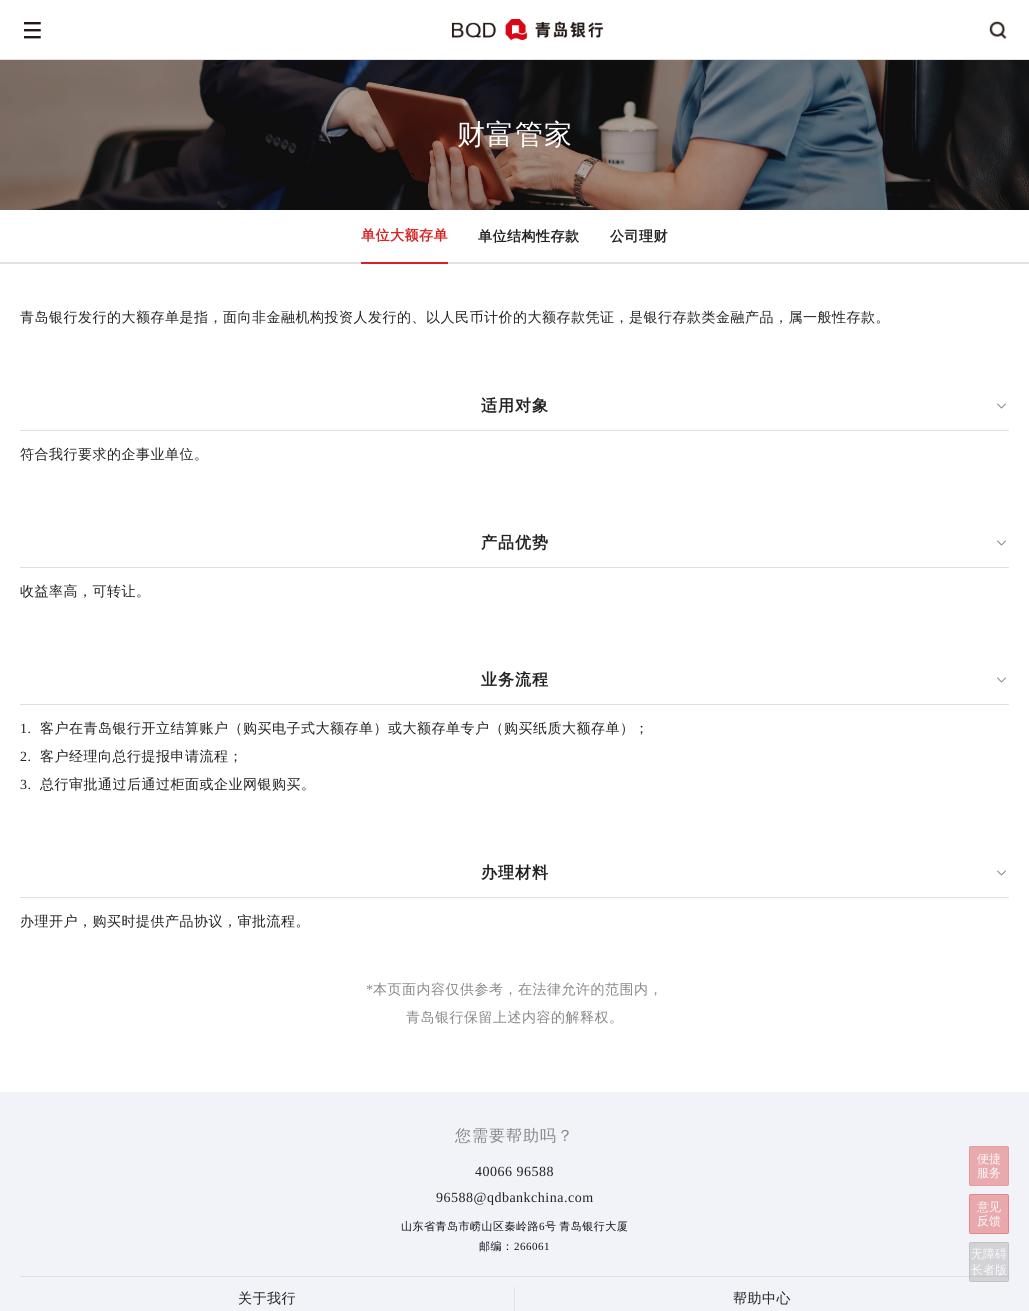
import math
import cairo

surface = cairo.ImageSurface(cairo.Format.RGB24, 1029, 1311)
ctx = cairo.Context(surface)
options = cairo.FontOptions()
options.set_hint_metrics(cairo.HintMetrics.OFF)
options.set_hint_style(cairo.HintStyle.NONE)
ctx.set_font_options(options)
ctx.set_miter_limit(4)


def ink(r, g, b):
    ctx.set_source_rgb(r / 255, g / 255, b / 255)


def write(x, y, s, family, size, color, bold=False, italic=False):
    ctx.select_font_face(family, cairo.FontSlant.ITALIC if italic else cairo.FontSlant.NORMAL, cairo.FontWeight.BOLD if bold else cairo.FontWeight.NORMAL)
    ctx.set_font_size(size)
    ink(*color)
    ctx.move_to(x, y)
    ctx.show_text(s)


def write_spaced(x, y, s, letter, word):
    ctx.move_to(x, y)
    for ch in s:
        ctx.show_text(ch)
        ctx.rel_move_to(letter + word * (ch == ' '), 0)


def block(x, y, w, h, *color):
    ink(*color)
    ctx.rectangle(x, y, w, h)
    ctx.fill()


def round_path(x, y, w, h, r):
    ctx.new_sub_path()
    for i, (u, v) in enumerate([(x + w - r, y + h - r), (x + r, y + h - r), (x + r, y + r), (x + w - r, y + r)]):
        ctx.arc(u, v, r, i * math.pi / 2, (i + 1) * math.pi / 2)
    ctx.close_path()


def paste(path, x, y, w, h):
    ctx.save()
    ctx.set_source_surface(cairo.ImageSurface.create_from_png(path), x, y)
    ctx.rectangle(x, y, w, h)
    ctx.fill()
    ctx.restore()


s1 = dict(family="WenQuanYi Zen Hei Medium", size=12, color=(249, 249, 252))

ink(255, 255, 255)
ctx.paint()
block(0, 59, 1029, 1, 225, 225, 225)
paste("pic1.png", 24, 22, 17, 17)
paste("pic2.png", 452, 19, 151, 21)
paste("pic3.png", 989, 21, 18, 19)
paste("pic4.png", 0, 60, 1029, 150)
ctx.select_font_face("WenQuanYi Zen Hei Medium")
ctx.set_font_size(28)
ink(255, 255, 255)
write_spaced(457, 144, "财富管家", 1, 0)
block(0, 262, 1029, 2, 225, 225, 225)
block(361, 262, 87, 2, 214, 34, 34)
ctx.select_font_face("WenQuanYi Zen Hei", cairo.FontSlant.NORMAL, cairo.FontWeight.BOLD)
ctx.set_font_size(14)
write_spaced(361, 240, "单位大额存单", 0.5, 0)
ink(34, 34, 34)
write_spaced(478, 241, "单位结构性存款", 0.5, 0)
write_spaced(610, 241, "公司理财", 0.5, 0)
ctx.select_font_face("WenQuanYi Zen Hei Medium")
write_spaced(20, 322, "青岛银行发行的大额存单是指，面向非金融机构投资人发行的、以人民币计价的大额存款凭证，是银行存款类金融产品，属一般性存款。", 0.5, 0)
block(20, 430, 989, 1, 225, 225, 225)
ctx.select_font_face("WenQuanYi Zen Hei", cairo.FontSlant.NORMAL, cairo.FontWeight.BOLD)
ctx.set_font_size(16)
ink(34, 34, 34)
write_spaced(481, 411, "适用对象", 1, 0)
ctx.new_path()
ctx.move_to(997.5, 404)
ctx.line_to(1001.5, 408)
ctx.line_to(1005.5, 404)
ink(134, 136, 143)
ctx.set_line_width(1)
ctx.set_line_cap(cairo.LineCap.ROUND)
ctx.set_line_join(cairo.LineJoin.ROUND)
ctx.stroke()
ctx.select_font_face("WenQuanYi Zen Hei Medium")
ctx.set_font_size(14)
ink(34, 34, 34)
write_spaced(20, 459, "符合我行要求的企事业单位。", 0.5, 0)
block(20, 567, 989, 1, 225, 225, 225)
ctx.select_font_face("WenQuanYi Zen Hei", cairo.FontSlant.NORMAL, cairo.FontWeight.BOLD)
ctx.set_font_size(16)
ink(34, 34, 34)
write_spaced(481, 548, "产品优势", 1, 0)
ctx.new_path()
ctx.move_to(997.5, 541)
ctx.line_to(1001.5, 545)
ctx.line_to(1005.5, 541)
ink(134, 136, 143)
ctx.stroke()
ctx.select_font_face("WenQuanYi Zen Hei Medium")
ctx.set_font_size(14)
ink(34, 34, 34)
write_spaced(20, 596, "收益率高，可转让。", 0.5, 0)
block(20, 704, 989, 1, 225, 225, 225)
ctx.select_font_face("WenQuanYi Zen Hei", cairo.FontSlant.NORMAL, cairo.FontWeight.BOLD)
ctx.set_font_size(16)
ink(34, 34, 34)
write_spaced(481, 685, "业务流程", 1, 0)
ctx.new_path()
ctx.move_to(997.5, 678)
ctx.line_to(1001.5, 682)
ctx.line_to(1005.5, 678)
ink(134, 136, 143)
ctx.stroke()
ctx.select_font_face("Liberation Serif")
ctx.set_font_size(14)
ink(34, 34, 34)
write_spaced(20, 733, "1.", 0.5, 0)
ctx.select_font_face("WenQuanYi Zen Hei Medium")
write_spaced(40, 733, "客户在青岛银行开立结算账户（购买电子式大额存单）或大额存单专户（购买纸质大额存单）；", 0.5, 0)
ctx.select_font_face("Liberation Serif")
write_spaced(20, 761, "2.", 0.5, 0)
ctx.select_font_face("WenQuanYi Zen Hei Medium")
write_spaced(40, 761, "客户经理向总行提报申请流程；", 0.5, 0)
ctx.select_font_face("Liberation Serif")
write_spaced(20, 789, "3.", 0.5, 0)
ctx.select_font_face("WenQuanYi Zen Hei Medium")
write_spaced(40, 789, "总行审批通过后通过柜面或企业网银购买。", 0.5, 0)
block(20, 897, 989, 1, 225, 225, 225)
ctx.select_font_face("WenQuanYi Zen Hei", cairo.FontSlant.NORMAL, cairo.FontWeight.BOLD)
ctx.set_font_size(16)
ink(34, 34, 34)
write_spaced(481, 878, "办理材料", 1, 0)
ctx.new_path()
ctx.move_to(997.5, 871)
ctx.line_to(1001.5, 875)
ctx.line_to(1005.5, 871)
ink(134, 136, 143)
ctx.stroke()
ctx.select_font_face("WenQuanYi Zen Hei Medium")
ctx.set_font_size(14)
ink(34, 34, 34)
write_spaced(20, 926, "办理开户，购买时提供产品协议，审批流程。", 0.5, 0)
ctx.select_font_face("Liberation Serif")
ink(136, 136, 136)
write_spaced(366, 994, "*", 0.5, 0)
ctx.select_font_face("WenQuanYi Zen Hei Medium")
write_spaced(373, 994, "本页面内容仅供参考，在法律允许的范围内，", 0.5, 0)
write_spaced(406, 1022, "青岛银行保留上述内容的解释权。", 0.5, 0)
block(0, 1092, 1029, 219, 242, 243, 248)
ctx.set_font_size(16)
ink(136, 136, 136)
write_spaced(455, 1141, "您需要帮助吗？", 1, 0)
ctx.select_font_face("Liberation Serif")
ctx.set_font_size(14)
ink(34, 34, 34)
write_spaced(475, 1176, "40066 96588", 0.5, 0)
write_spaced(436, 1202, "96588@qdbankchina.com", 0.5, 0)
ctx.select_font_face("WenQuanYi Zen Hei Medium")
ctx.set_font_size(11)
ink(13, 17, 31)
write_spaced(401, 1230, "山东省青岛市崂山区秦岭路", 0.5, 0)
ctx.select_font_face("Liberation Serif")
write_spaced(539, 1230, "6", 0.5, 0)
ctx.select_font_face("WenQuanYi Zen Hei Medium")
write_spaced(545, 1230, "号 青岛银行大厦", 0.5, -1)
write_spaced(479, 1250, "邮编：", 0.5, 0)
ctx.select_font_face("Liberation Serif")
write_spaced(514, 1250, "266061", 0.5, 0)
block(20, 1276, 989, 1, 223, 223, 223)
block(514, 1287, 1, 24, 225, 225, 225)
ctx.select_font_face("WenQuanYi Zen Hei Medium")
ctx.set_font_size(14)
ink(34, 34, 34)
write_spaced(238, 1303, "关于我行", 0.5, 0)
write_spaced(733, 1303, "帮助中心", 0.5, 0)
ink(232, 170, 173)
round_path(969, 1146, 40, 40, 2)
ctx.fill()
round_path(969.5, 1146.5, 39, 39, 1.5)
ctx.set_source_rgba(0.894, 0.545, 0.553, 0.5)
ctx.set_line_cap(cairo.LineCap.BUTT)
ctx.set_line_join(cairo.LineJoin.MITER)
ctx.stroke()
write(977, 1163, "便捷", **s1)
write(977, 1177, "服务", **s1)
ctx.set_source_rgba(0.839, 0.133, 0.133, 0.35)
round_path(969, 1194, 40, 40, 2)
ctx.fill()
round_path(969.5, 1194.5, 39, 39, 1.5)
ctx.set_source_rgba(0.839, 0.133, 0.133, 0.25)
ctx.stroke()
write(977, 1211, "意见", **s1)
write(977, 1225, "反馈", **s1)
ctx.set_source_rgba(0.6, 0.6, 0.6, 0.35)
round_path(969, 1242, 40, 40, 2)
ctx.fill()
round_path(969.5, 1242.5, 39, 39, 1.5)
ctx.set_source_rgba(0.6, 0.6, 0.6, 0.3)
ctx.stroke()
write(971, 1258, "无障碍", **s1)
write(971, 1274, "长者版", **s1)
surface.write_to_png("screenshot.png")
